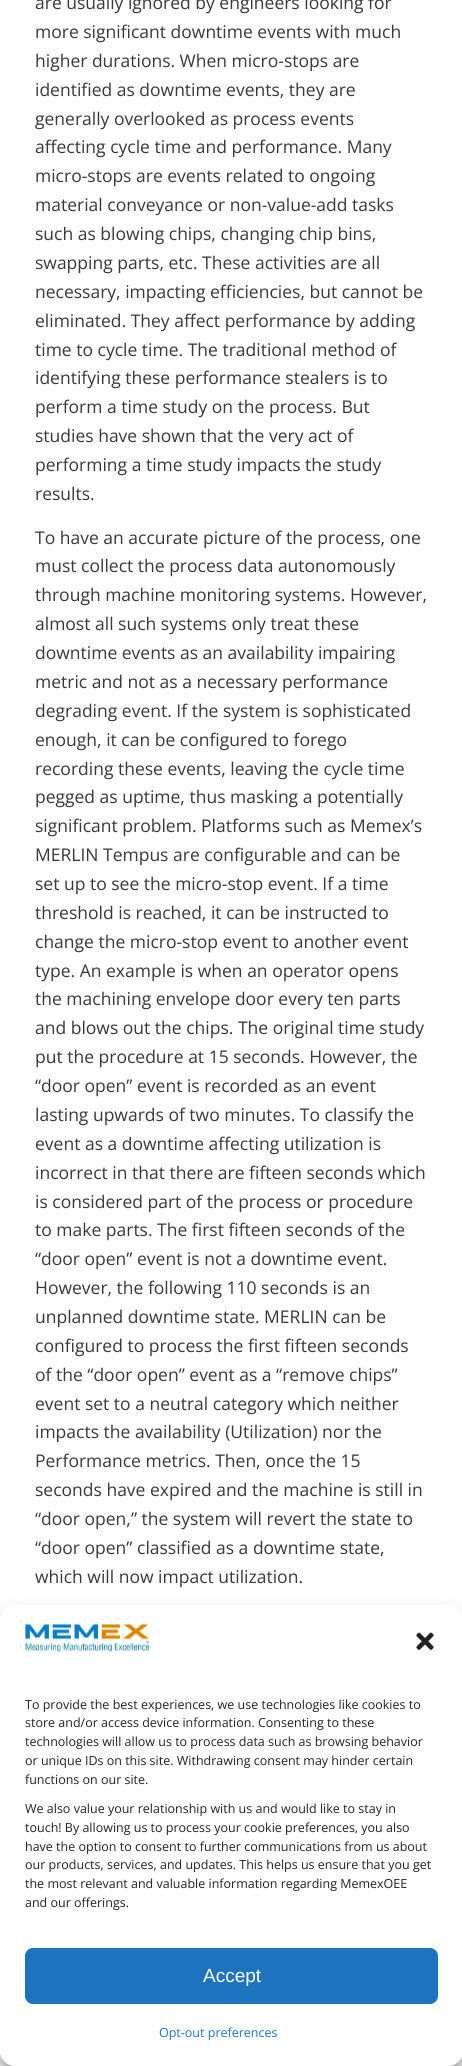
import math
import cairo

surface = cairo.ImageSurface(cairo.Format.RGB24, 462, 2066)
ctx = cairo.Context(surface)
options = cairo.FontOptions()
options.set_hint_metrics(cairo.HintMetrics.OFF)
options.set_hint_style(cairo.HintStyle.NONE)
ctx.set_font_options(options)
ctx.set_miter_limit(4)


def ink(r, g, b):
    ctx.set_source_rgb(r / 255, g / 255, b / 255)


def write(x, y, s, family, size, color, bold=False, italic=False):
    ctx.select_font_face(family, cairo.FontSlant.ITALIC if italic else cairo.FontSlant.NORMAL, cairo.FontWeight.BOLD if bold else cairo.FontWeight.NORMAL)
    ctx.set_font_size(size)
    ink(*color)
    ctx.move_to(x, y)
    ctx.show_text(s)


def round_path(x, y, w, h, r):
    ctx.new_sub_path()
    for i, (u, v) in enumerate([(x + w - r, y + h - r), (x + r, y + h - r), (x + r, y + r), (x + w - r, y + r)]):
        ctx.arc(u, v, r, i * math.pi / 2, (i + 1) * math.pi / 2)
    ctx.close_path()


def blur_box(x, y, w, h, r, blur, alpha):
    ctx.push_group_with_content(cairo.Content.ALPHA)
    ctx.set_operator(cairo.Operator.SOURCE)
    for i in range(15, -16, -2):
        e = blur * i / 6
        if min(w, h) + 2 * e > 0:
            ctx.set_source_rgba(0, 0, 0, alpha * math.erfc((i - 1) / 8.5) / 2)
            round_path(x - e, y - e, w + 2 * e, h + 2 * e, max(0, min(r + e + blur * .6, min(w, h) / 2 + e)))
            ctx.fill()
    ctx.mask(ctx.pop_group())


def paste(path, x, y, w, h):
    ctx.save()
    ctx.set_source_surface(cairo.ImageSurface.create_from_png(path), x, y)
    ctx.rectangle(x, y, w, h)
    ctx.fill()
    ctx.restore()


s1 = dict(family="Open Sans", size=17.5, color=(56, 56, 56))
s2 = dict(family="Open Sans", size=12.5, color=(34, 34, 34))
s3 = dict(family="Liberation Sans", size=19, color=(255, 255, 255))
s4 = dict(family="Open Sans", size=12.5, color=(30, 115, 190))

ink(255, 255, 255)
ctx.paint()
write(35, 9, "are usually ignored by engineers looking for", **s1)
write(35, 38, "more significant downtime events with much", **s1)
write(35, 67, "higher durations. When micro-stops are", **s1)
write(35, 96, "identified as downtime events, they are", **s1)
write(35, 125, "generally overlooked as process events", **s1)
write(35, 153, "affecting cycle time and performance. Many", **s1)
write(35, 182, "micro-stops are events related to ongoing", **s1)
write(35, 211, "material conveyance or non-value-add tasks", **s1)
write(35, 240, "such as blowing chips, changing chip bins,", **s1)
write(35, 269, "swapping parts, etc. These activities are all", **s1)
write(35, 298, "necessary, impacting efficiencies, but cannot be", **s1)
write(35, 327, "eliminated. They affect performance by adding", **s1)
write(35, 356, "time to cycle time. The traditional method of", **s1)
write(35, 384, "identifying these performance stealers is to", **s1)
write(35, 413, "perform a time study on the process. But", **s1)
write(35, 442, "studies have shown that the very act of", **s1)
write(35, 471, "performing a time study impacts the study", **s1)
write(35, 500, "results.", **s1)
write(35, 544, "To have an accurate picture of the process, one", **s1)
write(35, 572, "must collect the process data autonomously", **s1)
write(35, 601, "through machine monitoring systems. However,", **s1)
write(35, 630, "almost all such systems only treat these", **s1)
write(35, 659, "downtime events as an availability impairing", **s1)
write(35, 688, "metric and not as a necessary performance", **s1)
write(35, 717, "degrading event. If the system is sophisticated", **s1)
write(35, 746, "enough, it can be configured to forego", **s1)
write(35, 775, "recording these events, leaving the cycle time", **s1)
write(35, 803, "pegged as uptime, thus masking a potentially", **s1)
write(35, 832, "significant problem. Platforms such as Memex’s", **s1)
write(35, 861, "MERLIN Tempus are configurable and can be", **s1)
write(35, 890, "set up to see the micro-stop event. If a time", **s1)
write(35, 919, "threshold is reached, it can be instructed to", **s1)
write(35, 948, "change the micro-stop event to another event", **s1)
write(35, 977, "type. An example is when an operator opens", **s1)
write(35, 1005, "the machining envelope door every ten parts", **s1)
write(35, 1034, "and blows out the chips. The original time study", **s1)
write(35, 1063, "put the procedure at 15 seconds. However, the", **s1)
write(35, 1092, "“door open” event is recorded as an event", **s1)
write(35, 1121, "lasting upwards of two minutes. To classify the", **s1)
write(35, 1150, "event as a downtime affecting utilization is", **s1)
write(35, 1179, "incorrect in that there are fifteen seconds which", **s1)
write(35, 1208, "is considered part of the process or procedure", **s1)
write(35, 1236, "to make parts. The first fifteen seconds of the", **s1)
write(35, 1265, "“door open” event is not a downtime event.", **s1)
write(35, 1294, "However, the following 110 seconds is an", **s1)
write(35, 1323, "unplanned downtime state. MERLIN can be", **s1)
write(35, 1352, "configured to process the first fifteen seconds", **s1)
write(35, 1381, "of the “door open” event as a “remove chips”", **s1)
write(35, 1410, "event set to a neutral category which neither", **s1)
write(35, 1438, "impacts the availability (Utilization) nor the", **s1)
write(35, 1467, "Performance metrics. Then, once the 15", **s1)
write(35, 1496, "seconds have expired and the machine is still in", **s1)
write(35, 1525, "“door open,” the system will revert the state to", **s1)
write(35, 1554, "“door open” classified as a downtime state,", **s1)
write(35, 1583, "which will now impact utilization.", **s1)
ink(0, 0, 0)
blur_box(0, 1613, 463, 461, 15, 4, 0.23)
blur_box(0, 1618, 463, 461, 15, 12.5, 0.19)
ink(255, 255, 255)
round_path(0, 1605, 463, 461, 15)
ctx.fill()
paste("pic1.png", 25, 1623, 125, 29)
paste("pic2.png", 416, 1632, 18, 18)
write(25, 1709, "To provide the best experiences, we use technologies like cookies to", **s2)
write(25, 1727, "store and/or access device information. Consenting to these", **s2)
write(25, 1746, "technologies will allow us to process data such as browsing behavior", **s2)
write(25, 1765, "or unique IDs on this site. Withdrawing consent may hinder certain", **s2)
write(25, 1784, "functions on our site.", **s2)
write(25, 1813, "We also value your relationship with us and would like to stay in", **s2)
write(25, 1832, "touch! By allowing us to process your cookie preferences, you also", **s2)
write(25, 1851, "have the option to consent to further communications from us about", **s2)
write(25, 1869, "our products, services, and updates. This helps us ensure that you get", **s2)
write(25, 1888, "the most relevant and valuable information regarding MemexOEE", **s2)
write(25, 1907, "and our offerings.", **s2)
ink(30, 115, 190)
round_path(25.5, 1948.5, 412, 55, 7.5)
ctx.fill_preserve()
ctx.set_line_width(1)
ctx.stroke()
write(203, 1982, "Accept", **s3)
write(159, 2037, "Opt-out preferences", **s4)
surface.write_to_png("screenshot.png")
